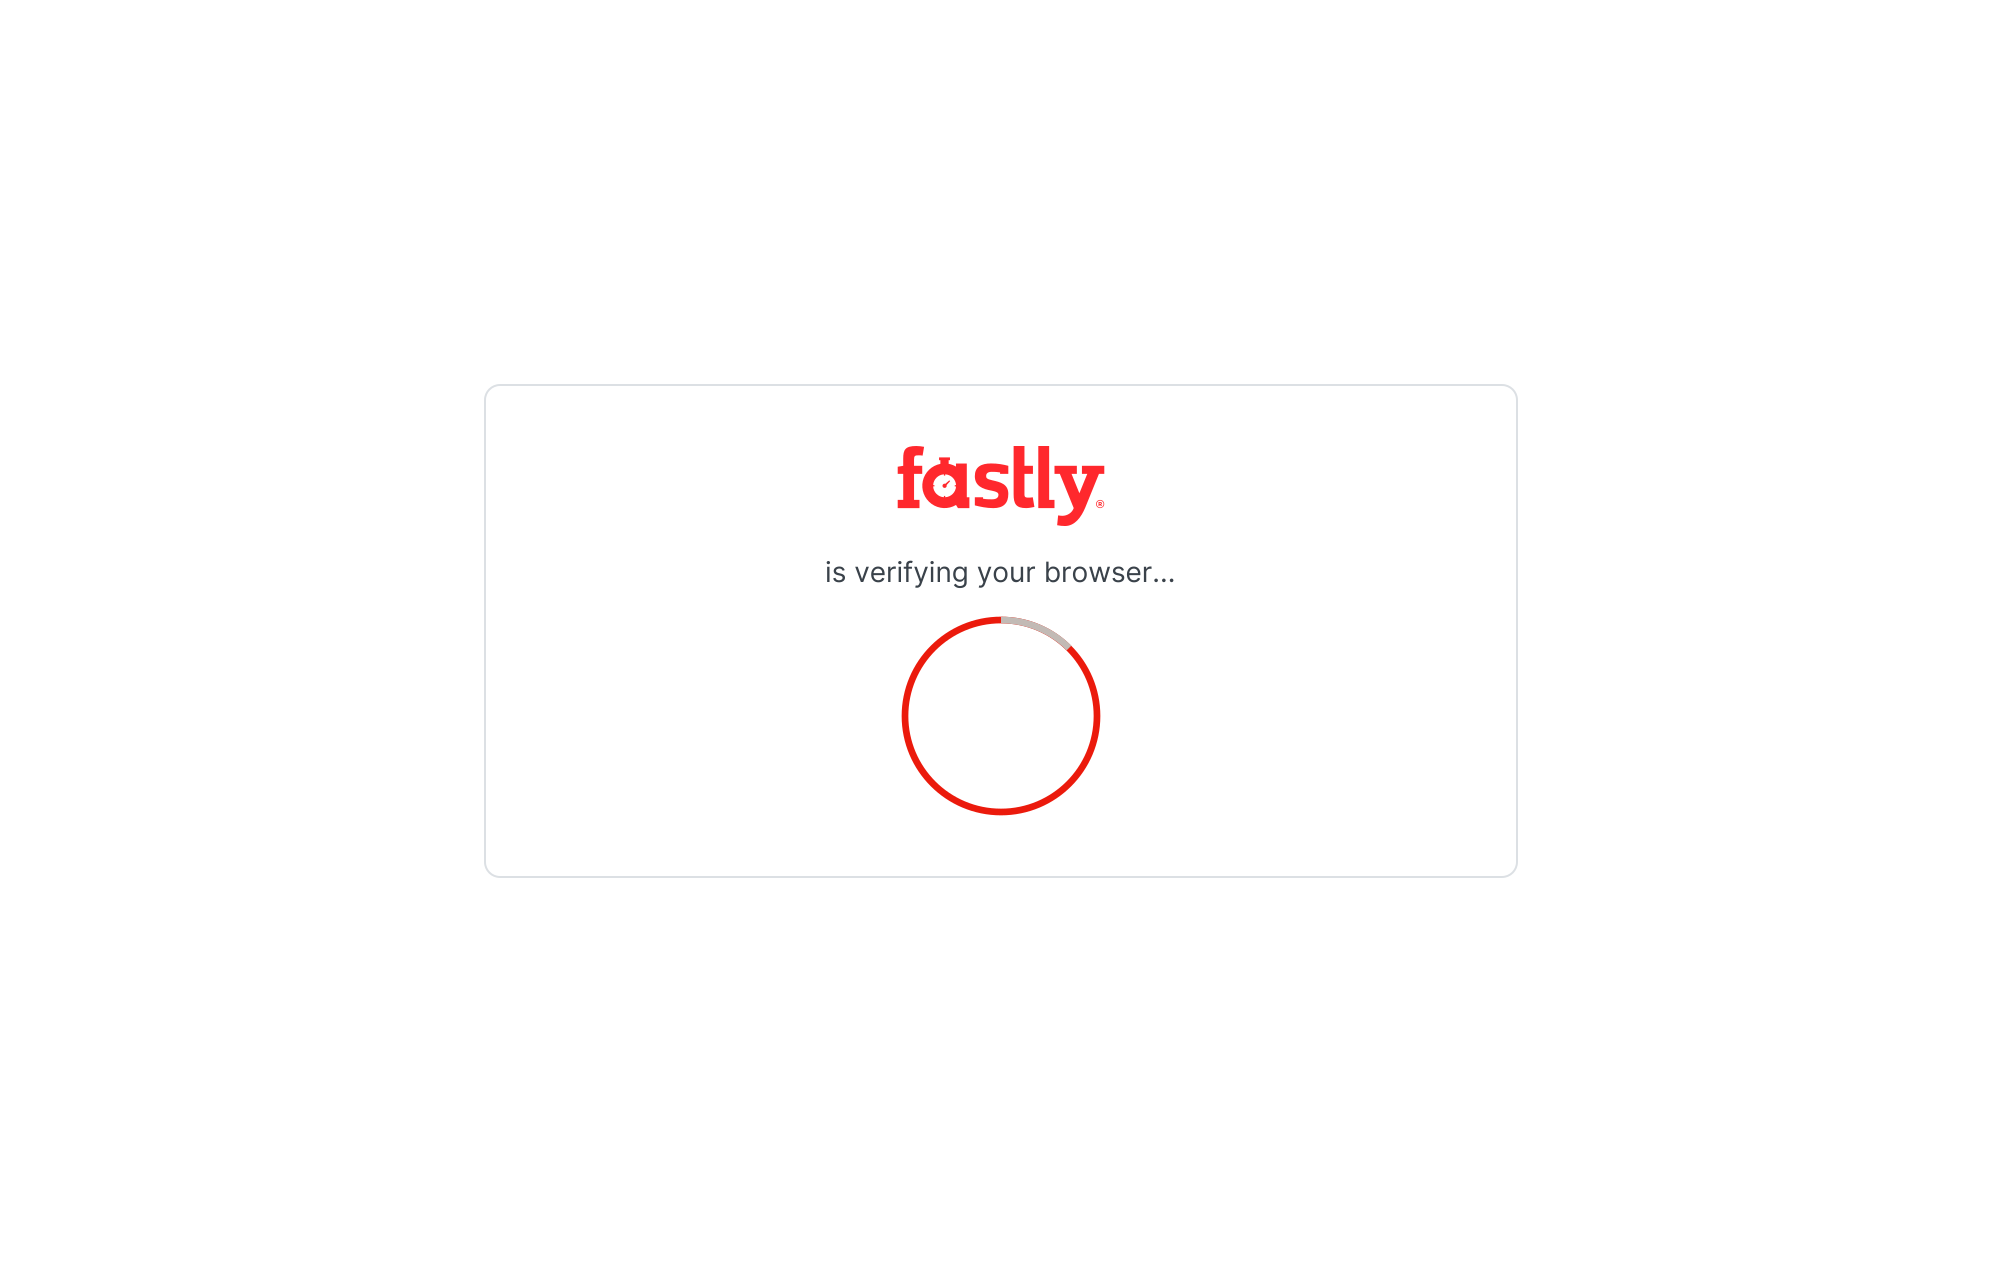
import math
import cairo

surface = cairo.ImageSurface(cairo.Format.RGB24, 1999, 1261)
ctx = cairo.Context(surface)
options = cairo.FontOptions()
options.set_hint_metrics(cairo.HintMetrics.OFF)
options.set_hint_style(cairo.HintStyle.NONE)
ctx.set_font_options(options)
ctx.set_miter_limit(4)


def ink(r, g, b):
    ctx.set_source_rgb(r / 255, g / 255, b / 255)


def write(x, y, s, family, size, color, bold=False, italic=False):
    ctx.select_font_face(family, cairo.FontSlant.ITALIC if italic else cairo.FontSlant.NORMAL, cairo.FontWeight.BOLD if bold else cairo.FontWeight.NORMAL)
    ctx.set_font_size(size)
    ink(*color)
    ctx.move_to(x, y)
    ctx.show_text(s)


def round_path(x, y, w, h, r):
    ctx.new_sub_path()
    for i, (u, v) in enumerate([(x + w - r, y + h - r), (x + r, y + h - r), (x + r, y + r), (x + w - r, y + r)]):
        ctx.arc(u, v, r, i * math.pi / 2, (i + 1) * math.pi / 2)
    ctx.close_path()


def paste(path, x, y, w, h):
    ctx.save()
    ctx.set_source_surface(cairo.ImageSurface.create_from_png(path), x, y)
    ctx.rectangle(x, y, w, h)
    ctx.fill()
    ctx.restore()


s1 = dict(family="Inter", size=28, color=(58, 66, 74))

ink(255, 255, 255)
ctx.paint()
round_path(485, 385, 1032, 492, 15)
ink(220, 224, 228)
ctx.stroke()
paste("pic1.png", 897, 446, 208, 80)
write(825, 582, "is verifying your browser...", **s1)
ctx.new_path()
ctx.move_to(905, 716)
ctx.curve_to(905, 663, 948, 620, 1001, 620)
ctx.curve_to(1054, 620, 1097, 663, 1097, 716)
ctx.curve_to(1097, 769, 1054, 812, 1001, 812)
ctx.curve_to(948, 812, 905, 769, 905, 716)
ctx.close_path()
ink(235, 26, 12)
ctx.set_line_width(6.7)
ctx.stroke()
ctx.new_path()
ctx.move_to(1069, 648)
ctx.curve_to(1051, 630, 1026.5, 620, 1001, 620)
ink(194, 186, 181)
ctx.stroke()
surface.write_to_png("screenshot.png")
